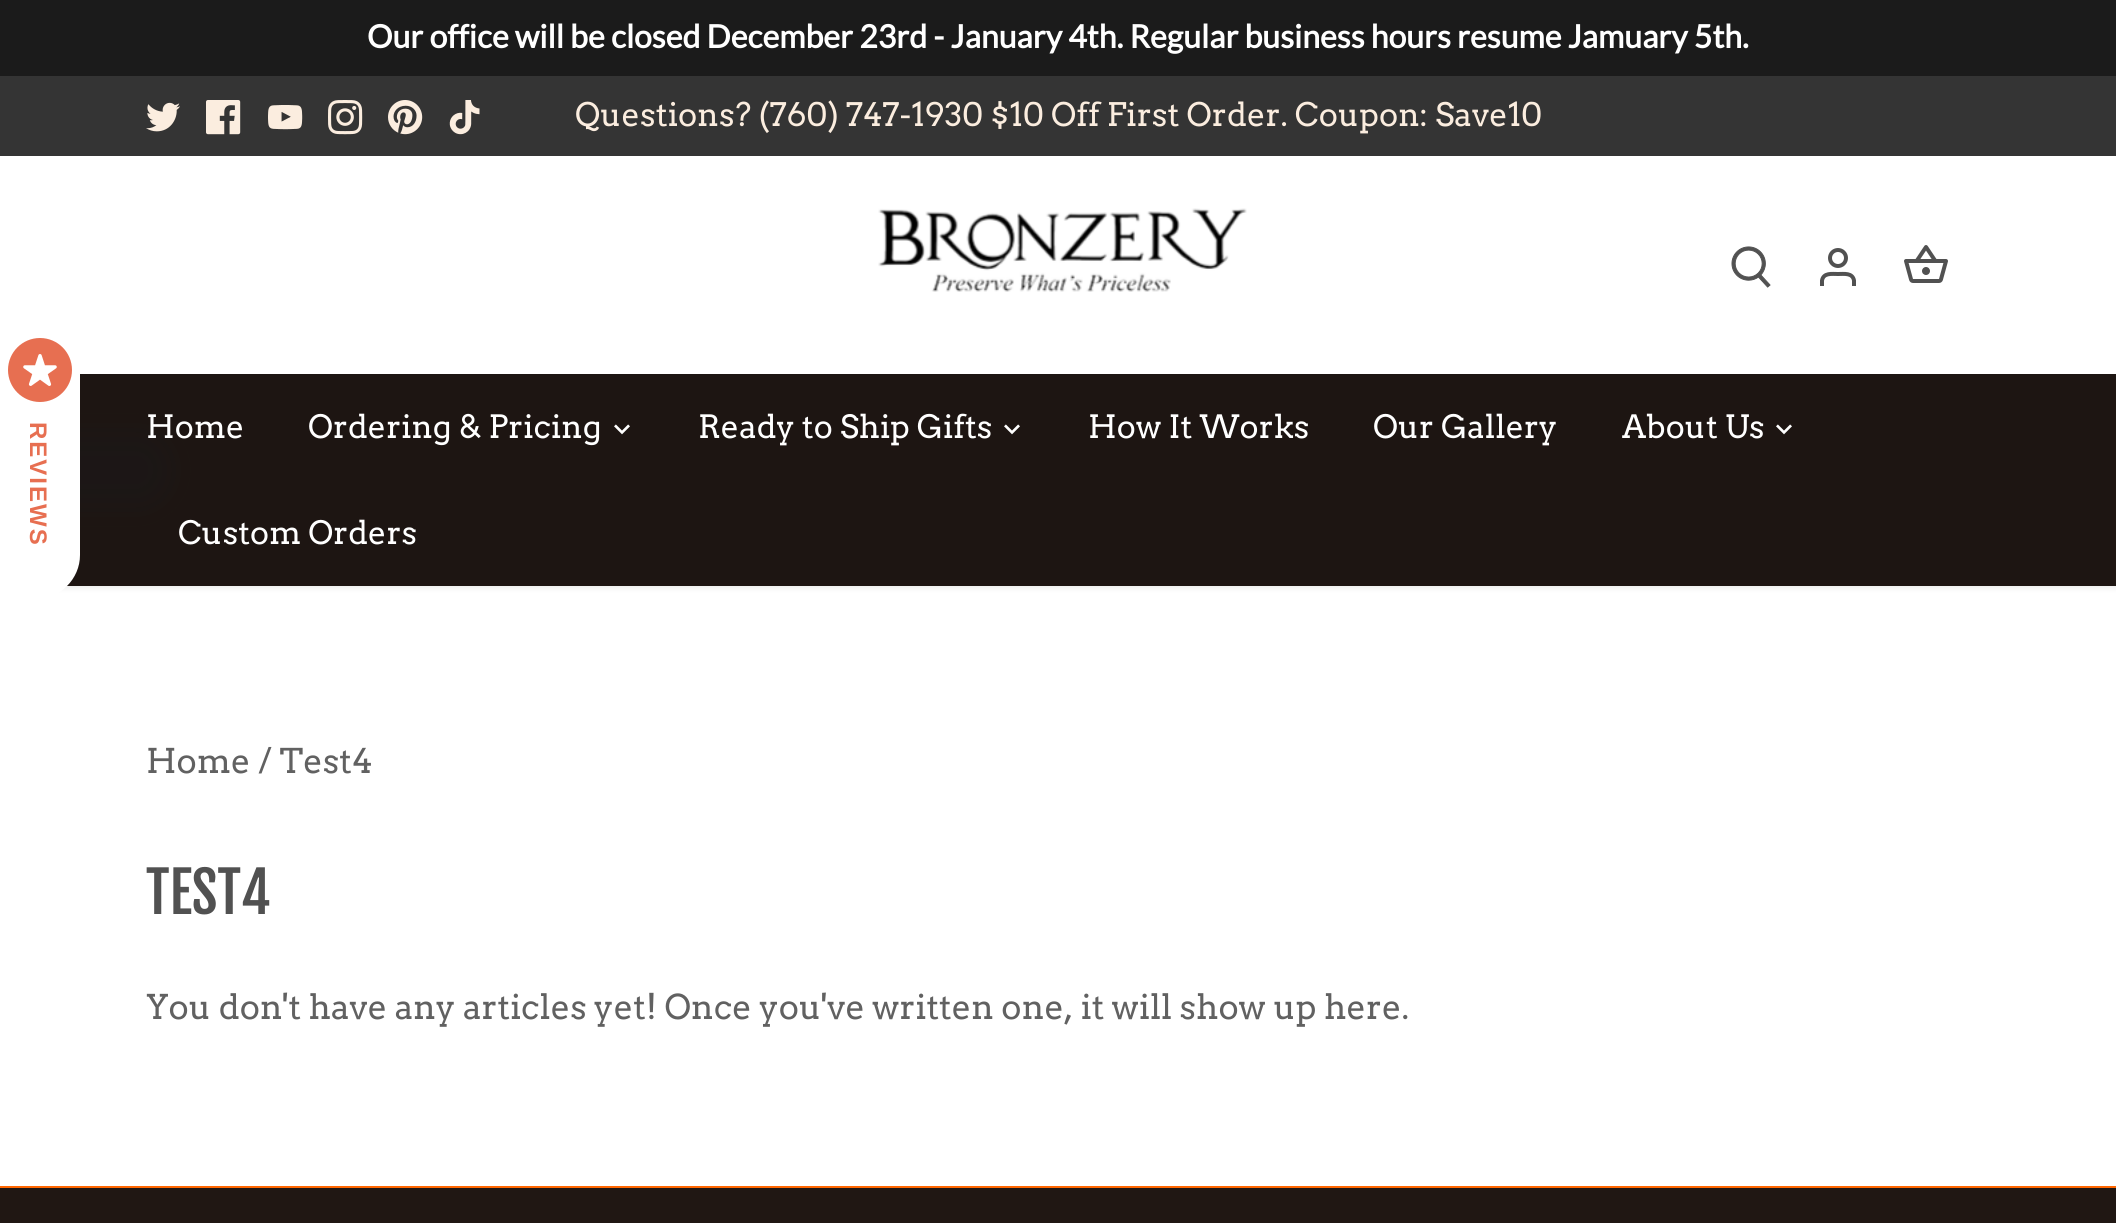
import math
import cairo

surface = cairo.ImageSurface(cairo.Format.RGB24, 2116, 1223)
ctx = cairo.Context(surface)
options = cairo.FontOptions()
options.set_hint_metrics(cairo.HintMetrics.OFF)
options.set_hint_style(cairo.HintStyle.NONE)
ctx.set_font_options(options)
ctx.set_miter_limit(4)


def ink(r, g, b):
    ctx.set_source_rgb(r / 255, g / 255, b / 255)


def write(x, y, s, family, size, color, bold=False, italic=False):
    ctx.select_font_face(family, cairo.FontSlant.ITALIC if italic else cairo.FontSlant.NORMAL, cairo.FontWeight.BOLD if bold else cairo.FontWeight.NORMAL)
    ctx.set_font_size(size)
    ink(*color)
    ctx.move_to(x, y)
    ctx.show_text(s)


def write_spaced(x, y, s, letter, word):
    ctx.move_to(x, y)
    for ch in s:
        ctx.show_text(ch)
        ctx.rel_move_to(letter + word * (ch == ' '), 0)


def block(x, y, w, h, *color):
    ink(*color)
    ctx.rectangle(x, y, w, h)
    ctx.fill()


def round_path(x, y, w, h, r):
    ctx.new_sub_path()
    for i, (u, v) in enumerate([(x + w - r, y + h - r), (x + r, y + h - r), (x + r, y + r), (x + w - r, y + r)]):
        ctx.arc(u, v, r, i * math.pi / 2, (i + 1) * math.pi / 2)
    ctx.close_path()


def blur_box(x, y, w, h, r, blur, alpha):
    ctx.push_group_with_content(cairo.Content.ALPHA)
    ctx.set_operator(cairo.Operator.SOURCE)
    for i in range(15, -16, -2):
        e = blur * i / 6
        if min(w, h) + 2 * e > 0:
            ctx.set_source_rgba(0, 0, 0, alpha * math.erfc((i - 1) / 8.5) / 2)
            round_path(x - e, y - e, w + 2 * e, h + 2 * e, max(0, min(r + e + blur * .6, min(w, h) / 2 + e)))
            ctx.fill()
    ctx.mask(ctx.pop_group())


def paste(path, x, y, w, h):
    ctx.save()
    ctx.set_source_surface(cairo.ImageSurface.create_from_png(path), x, y)
    ctx.rectangle(x, y, w, h)
    ctx.fill()
    ctx.restore()


s1 = dict(family="Lato", size=32, color=(255, 255, 255), bold=True)
s2 = dict(family="Arvo", size=32.3, color=(251, 237, 223))
s3 = dict(family="Arvo", size=32, color=(255, 255, 255))
s4 = dict(family="Arvo", size=34, color=(97, 97, 97))
s5 = dict(family="Fjalla One", size=56, color=(81, 81, 81))

ink(32, 23, 19)
ctx.paint()
block(0, 0, 2116, 76, 27, 27, 27)
write(367, 48, "Our office will be closed December 23rd - January 4th. Regular business hours resume Jamuary 5th.", **s1)
ink(17, 34, 51)
blur_box(-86, 430, 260, 80, 44, 14, 0.16)
block(0, 586, 2116, 600, 255, 255, 255)
ink(0, 0, 0)
blur_box(-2, 154, 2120, 434, 0, 3, 0.08)
block(0, 156, 2116, 218, 255, 255, 255)
ctx.new_path()
ctx.move_to(80, 374)
ctx.line_to(80, 555)
ctx.curve_to(80, 579, 60, 599, 36, 599)
ctx.line_to(0, 599)
ctx.line_to(0, 330)
ctx.line_to(36, 330)
ctx.curve_to(60, 330, 80, 350, 80, 374)
ctx.close_path()
ctx.fill()
ink(231, 111, 81)
ctx.arc(40, 370, 32, 0, 2 * math.pi)
ctx.fill()
paste("pic1.png", 23, 354, 34, 32)
ctx.select_font_face("Liberation Sans", cairo.FontSlant.NORMAL, cairo.FontWeight.BOLD)
ctx.set_font_size(24)
ctx.save()
ctx.translate(30, 422)
ctx.rotate(90 * math.pi / 180)
write_spaced(0, 0, "REVIEWS", 2, 0)
ctx.restore()
block(0, 76, 2116, 80, 52, 52, 52)
paste("pic2.png", 146, 102, 34, 30)
paste("pic3.png", 206, 100, 35, 35)
paste("pic4.png", 268, 105, 35, 25)
paste("pic5.png", 328, 100, 35, 35)
paste("pic6.png", 388, 100, 35, 35)
paste("pic7.png", 449, 100, 31, 35)
write(575, 126, "Questions? (760) 747-1930 $10 Off First Order. Coupon: Save10", **s2)
paste("pic8.png", 878, 208, 369, 84)
paste("pic9.png", 1731, 246, 40, 42)
ctx.arc(1838, 258, 8, 0, 2 * math.pi)
ink(81, 81, 81)
ctx.set_line_width(4)
ctx.stroke()
ctx.new_path()
ctx.move_to(1854, 286)
ctx.line_to(1854, 280.5)
ctx.curve_to(1852.5, 272.5, 1844, 274, 1838, 274)
ctx.curve_to(1832, 274, 1823.5, 272.5, 1822, 280.5)
ctx.line_to(1822, 286)
ctx.stroke()
paste("pic10.png", 1904, 245, 44, 38)
write(146, 438, "Home", **s3)
write(308, 438, "Ordering & Pricing", **s3)
paste("pic11.png", 614, 424, 16, 11)
write(698, 438, "Ready to Ship Gifts", **s3)
paste("pic11.png", 1004, 424, 16, 11)
write(1088, 438, "How It Works", **s3)
write(1373, 438, "Our Gallery", **s3)
write(1622, 438, "About Us", **s3)
paste("pic11.png", 1776, 424, 16, 11)
write(178, 544, "Custom Orders", **s3)
write(146, 773, "Home / Test4", **s4)
write(146, 914, "TEST4", **s5)
write(146, 1019, "You don't have any articles yet! Once you've written one, it will show up here.", **s4)
block(0, 1186, 2116, 2, 255, 102, 0)
surface.write_to_png("screenshot.png")
